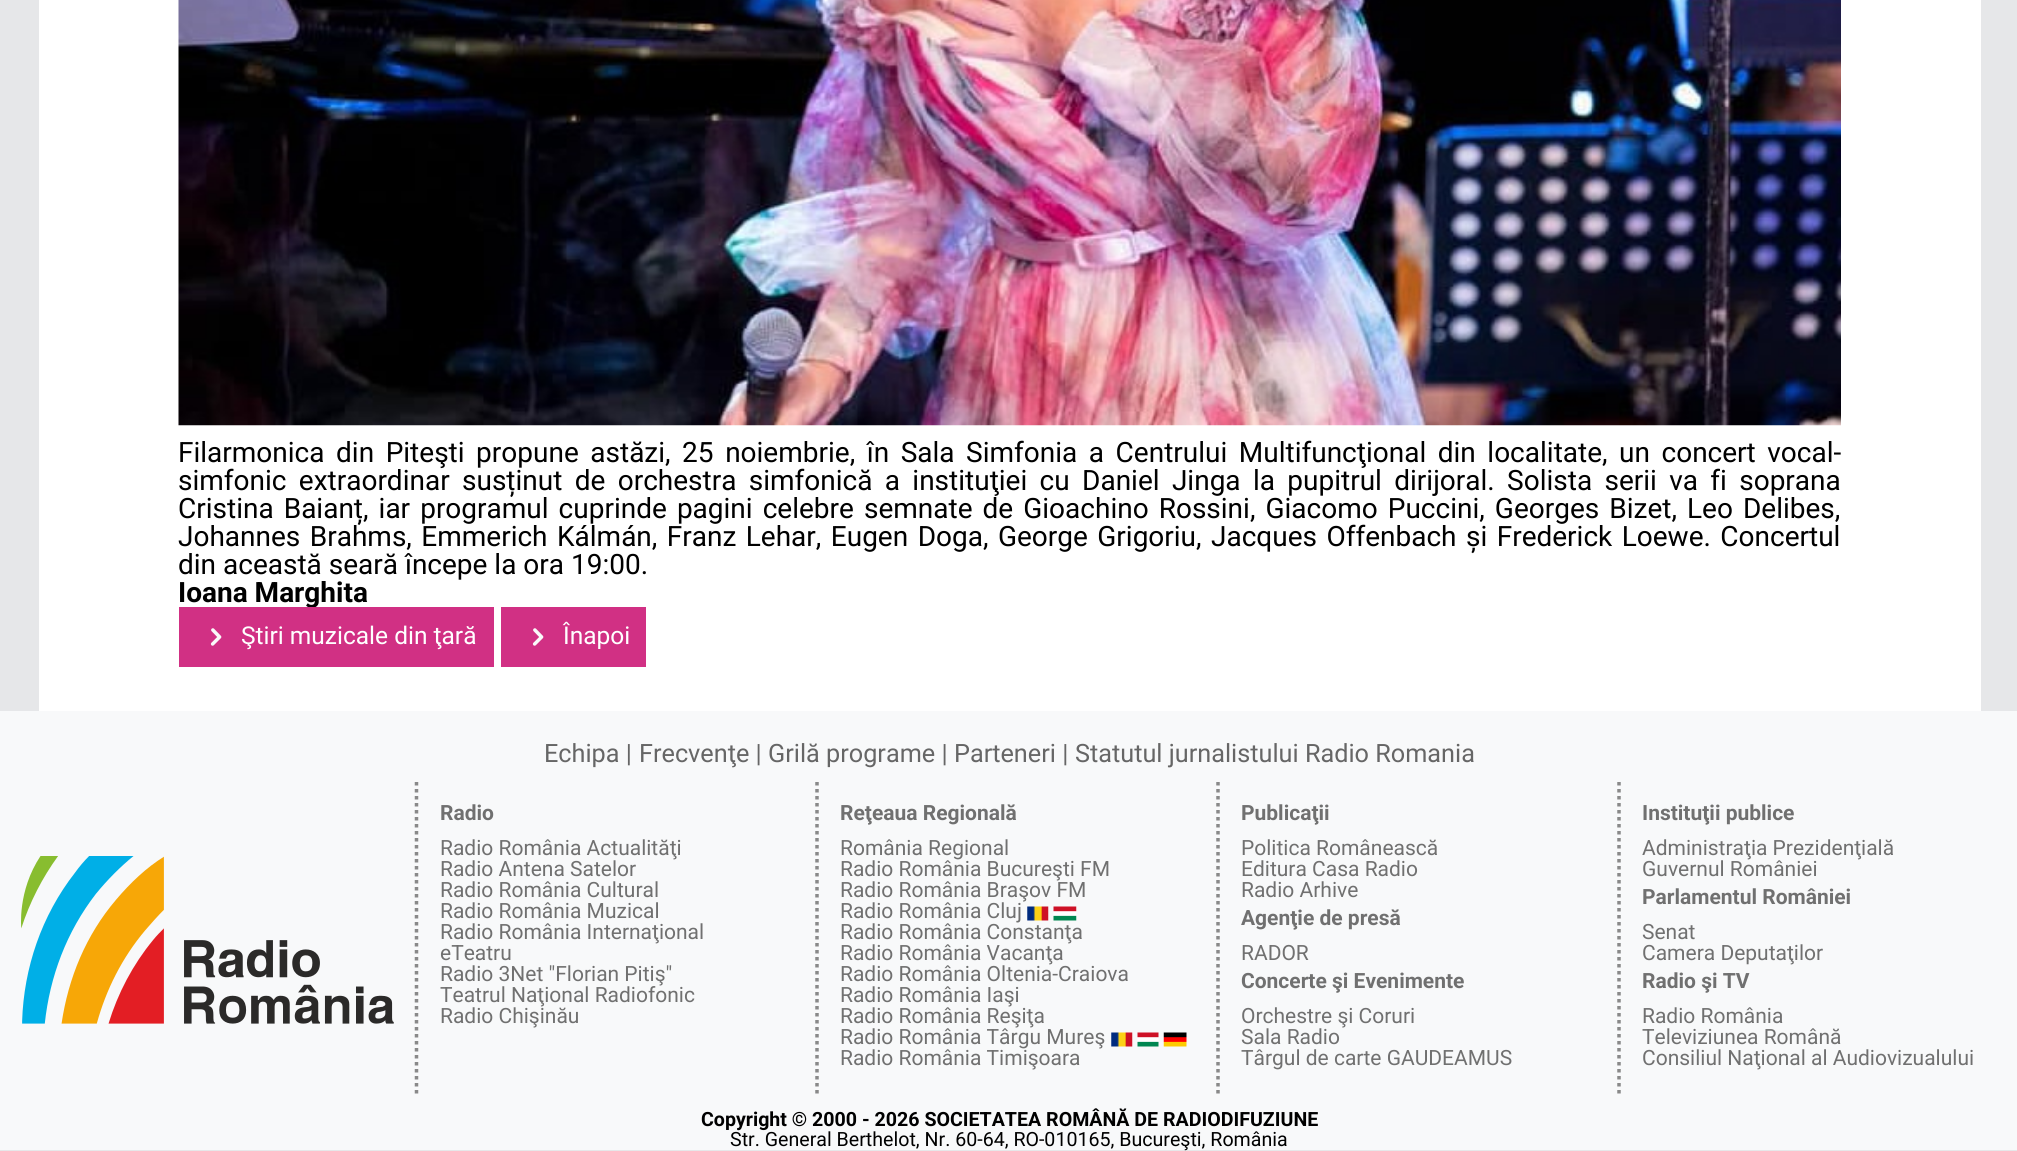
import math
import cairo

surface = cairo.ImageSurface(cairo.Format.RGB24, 2017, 1151)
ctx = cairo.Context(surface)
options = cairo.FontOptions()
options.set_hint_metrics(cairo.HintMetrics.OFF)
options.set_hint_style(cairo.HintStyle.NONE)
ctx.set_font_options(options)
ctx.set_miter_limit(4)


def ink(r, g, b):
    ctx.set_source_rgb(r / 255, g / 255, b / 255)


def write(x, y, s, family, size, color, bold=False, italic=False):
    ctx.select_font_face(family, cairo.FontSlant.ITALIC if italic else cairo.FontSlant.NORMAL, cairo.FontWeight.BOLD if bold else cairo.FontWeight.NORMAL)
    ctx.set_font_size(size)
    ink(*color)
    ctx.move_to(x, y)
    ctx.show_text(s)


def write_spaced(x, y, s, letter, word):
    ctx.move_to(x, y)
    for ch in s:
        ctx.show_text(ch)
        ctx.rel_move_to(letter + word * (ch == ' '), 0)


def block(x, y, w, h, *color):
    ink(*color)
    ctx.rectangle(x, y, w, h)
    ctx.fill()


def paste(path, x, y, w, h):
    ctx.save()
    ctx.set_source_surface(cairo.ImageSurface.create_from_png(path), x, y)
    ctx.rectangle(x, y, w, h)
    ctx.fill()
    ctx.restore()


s1 = dict(family="Roboto", size=28, color=(0, 0, 0))
s2 = dict(family="Roboto", size=28, color=(0, 0, 0), bold=True)
s3 = dict(family="Roboto", size=24.5, color=(255, 255, 255))
s4 = dict(family="Roboto", size=25.25, color=(102, 102, 102))
s5 = dict(family="Roboto", size=21, color=(112, 112, 112), bold=True)
s6 = dict(family="Roboto", size=21, color=(112, 112, 112))
s7 = dict(family="Roboto", size=19.6, color=(0, 0, 0), bold=True)
s8 = dict(family="Roboto", size=19.6, color=(0, 0, 0))

ink(230, 231, 233)
ctx.paint()
block(39, 0, 1942, 711, 255, 255, 255)
paste("pic1.png", 178, 0, 1663, 426)
ctx.select_font_face("Roboto")
ctx.set_font_size(28)
ink(0, 0, 0)
write_spaced(178, 462, "Filarmonica din Piteşti propune astăzi, 25 noiembrie, în Sala Simfonia a Centrului Multifuncţional din localitate, un concert vocal-", 0, 4.6)
write_spaced(178, 490, "simfonic extraordinar susținut de orchestra simfonică a instituţiei cu Daniel Jinga la pupitrul dirijoral. Solista serii va fi soprana", 0, 5.4)
write_spaced(178, 518, "Cristina Baianț, iar programul cuprinde pagini celebre semnate de Gioachino Rossini, Giacomo Puccini, Georges Bizet, Leo Delibes,", 0, 3.1)
write_spaced(178, 546, "Johannes Brahms, Emmerich Kálmán, Franz Lehar, Eugen Doga, George Grigoriu, Jacques Offenbach și Frederick Loewe. Concertul", 0, 2.5)
write(178, 574, "din această seară începe la ora 19:00.", **s1)
write(178, 602, "Ioana Marghita", **s2)
block(179, 607, 315, 60, 209, 48, 132)
paste("pic2.png", 210, 628, 12, 18)
write(241, 644, "Ştiri muzicale din ţară", **s3)
block(501, 607, 145, 60, 209, 48, 132)
paste("pic2.png", 532, 628, 12, 18)
write(563, 644, "Înapoi", **s3)
block(0, 711, 2017, 439, 248, 249, 250)
write(544, 762, "Echipa |", **s4)
write(639, 762, "Frecvenţe |", **s4)
write(768, 762, "Grilă programe |", **s4)
write(954, 762, "Parteneri |", **s4)
write(1075, 762, "Statutul jurnalistului Radio Romania", **s4)
paste("pic3.png", 21, 856, 373, 168)
ctx.new_path()
ctx.move_to(416.5, 782)
ctx.line_to(416.5, 1097)
ink(137, 137, 137)
ctx.set_line_width(3.5)
ctx.set_dash([3.5, 3.5])
ctx.stroke()
write(440, 820, "Radio", **s5)
write(440, 855, "Radio România Actualităţi", **s6)
write(440, 876, "Radio Antena Satelor", **s6)
write(440, 897, "Radio România Cultural", **s6)
write(440, 918, "Radio România Muzical", **s6)
write(440, 939, "Radio România Internaţional", **s6)
write(440, 960, "eTeatru", **s6)
write(440, 981, "Radio 3Net \"Florian Pitiş\"", **s6)
write(440, 1002, "Teatrul Naţional Radiofonic", **s6)
write(440, 1023, "Radio Chişinău", **s6)
ctx.new_path()
ctx.move_to(817, 782)
ctx.line_to(817, 1097)
ink(137, 137, 137)
ctx.stroke()
write(840, 820, "Reţeaua Regională", **s5)
write(840, 855, "România Regional", **s6)
write(840, 876, "Radio România Bucureşti FM", **s6)
write(840, 897, "Radio România Braşov FM", **s6)
write(840, 918, "Radio România Cluj", **s6)
paste("pic4.png", 1027, 906, 22, 15)
paste("pic5.png", 1053, 906, 24, 15)
write(840, 939, "Radio România Constanţa", **s6)
write(840, 960, "Radio România Vacanţa", **s6)
write(840, 981, "Radio România Oltenia-Craiova", **s6)
write(840, 1002, "Radio România Iaşi", **s6)
write(840, 1023, "Radio România Reşiţa", **s6)
write(840, 1044, "Radio România Târgu Mureş", **s6)
paste("pic4.png", 1111, 1032, 22, 15)
paste("pic6.png", 1137, 1032, 22, 15)
paste("pic7.png", 1163, 1032, 24, 15)
write(840, 1065, "Radio România Timişoara", **s6)
ctx.new_path()
ctx.move_to(1218, 782)
ctx.line_to(1218, 1097)
ink(137, 137, 137)
ctx.stroke()
write(1241, 820, "Publicaţii", **s5)
write(1241, 855, "Politica Românească", **s6)
write(1241, 876, "Editura Casa Radio", **s6)
write(1241, 897, "Radio Arhive", **s6)
write(1241, 925, "Agenţie de presă", **s5)
write(1241, 960, "RADOR", **s6)
write(1241, 988, "Concerte şi Evenimente", **s5)
write(1241, 1023, "Orchestre şi Coruri", **s6)
write(1241, 1044, "Sala Radio", **s6)
write(1241, 1065, "Târgul de carte GAUDEAMUS", **s6)
ctx.new_path()
ctx.move_to(1619, 782)
ctx.line_to(1619, 1097)
ink(137, 137, 137)
ctx.stroke()
write(1642, 820, "Instituţii publice", **s5)
write(1642, 855, "Administraţia Prezidenţială", **s6)
write(1642, 876, "Guvernul României", **s6)
write(1642, 904, "Parlamentul României", **s5)
write(1642, 939, "Senat", **s6)
write(1642, 960, "Camera Deputaţilor", **s6)
write(1642, 988, "Radio şi TV", **s5)
write(1642, 1023, "Radio România", **s6)
write(1642, 1044, "Televiziunea Română", **s6)
write(1642, 1065, "Consiliul Naţional al Audiovizualului", **s6)
write(701, 1126, "Copyright © 2000 - 2026 SOCIETATEA ROMÂNĂ DE RADIODIFUZIUNE", **s7)
write(730, 1146, "Str. General Berthelot, Nr. 60-64, RO-010165, Bucureşti, România", **s8)
surface.write_to_png("screenshot.png")
